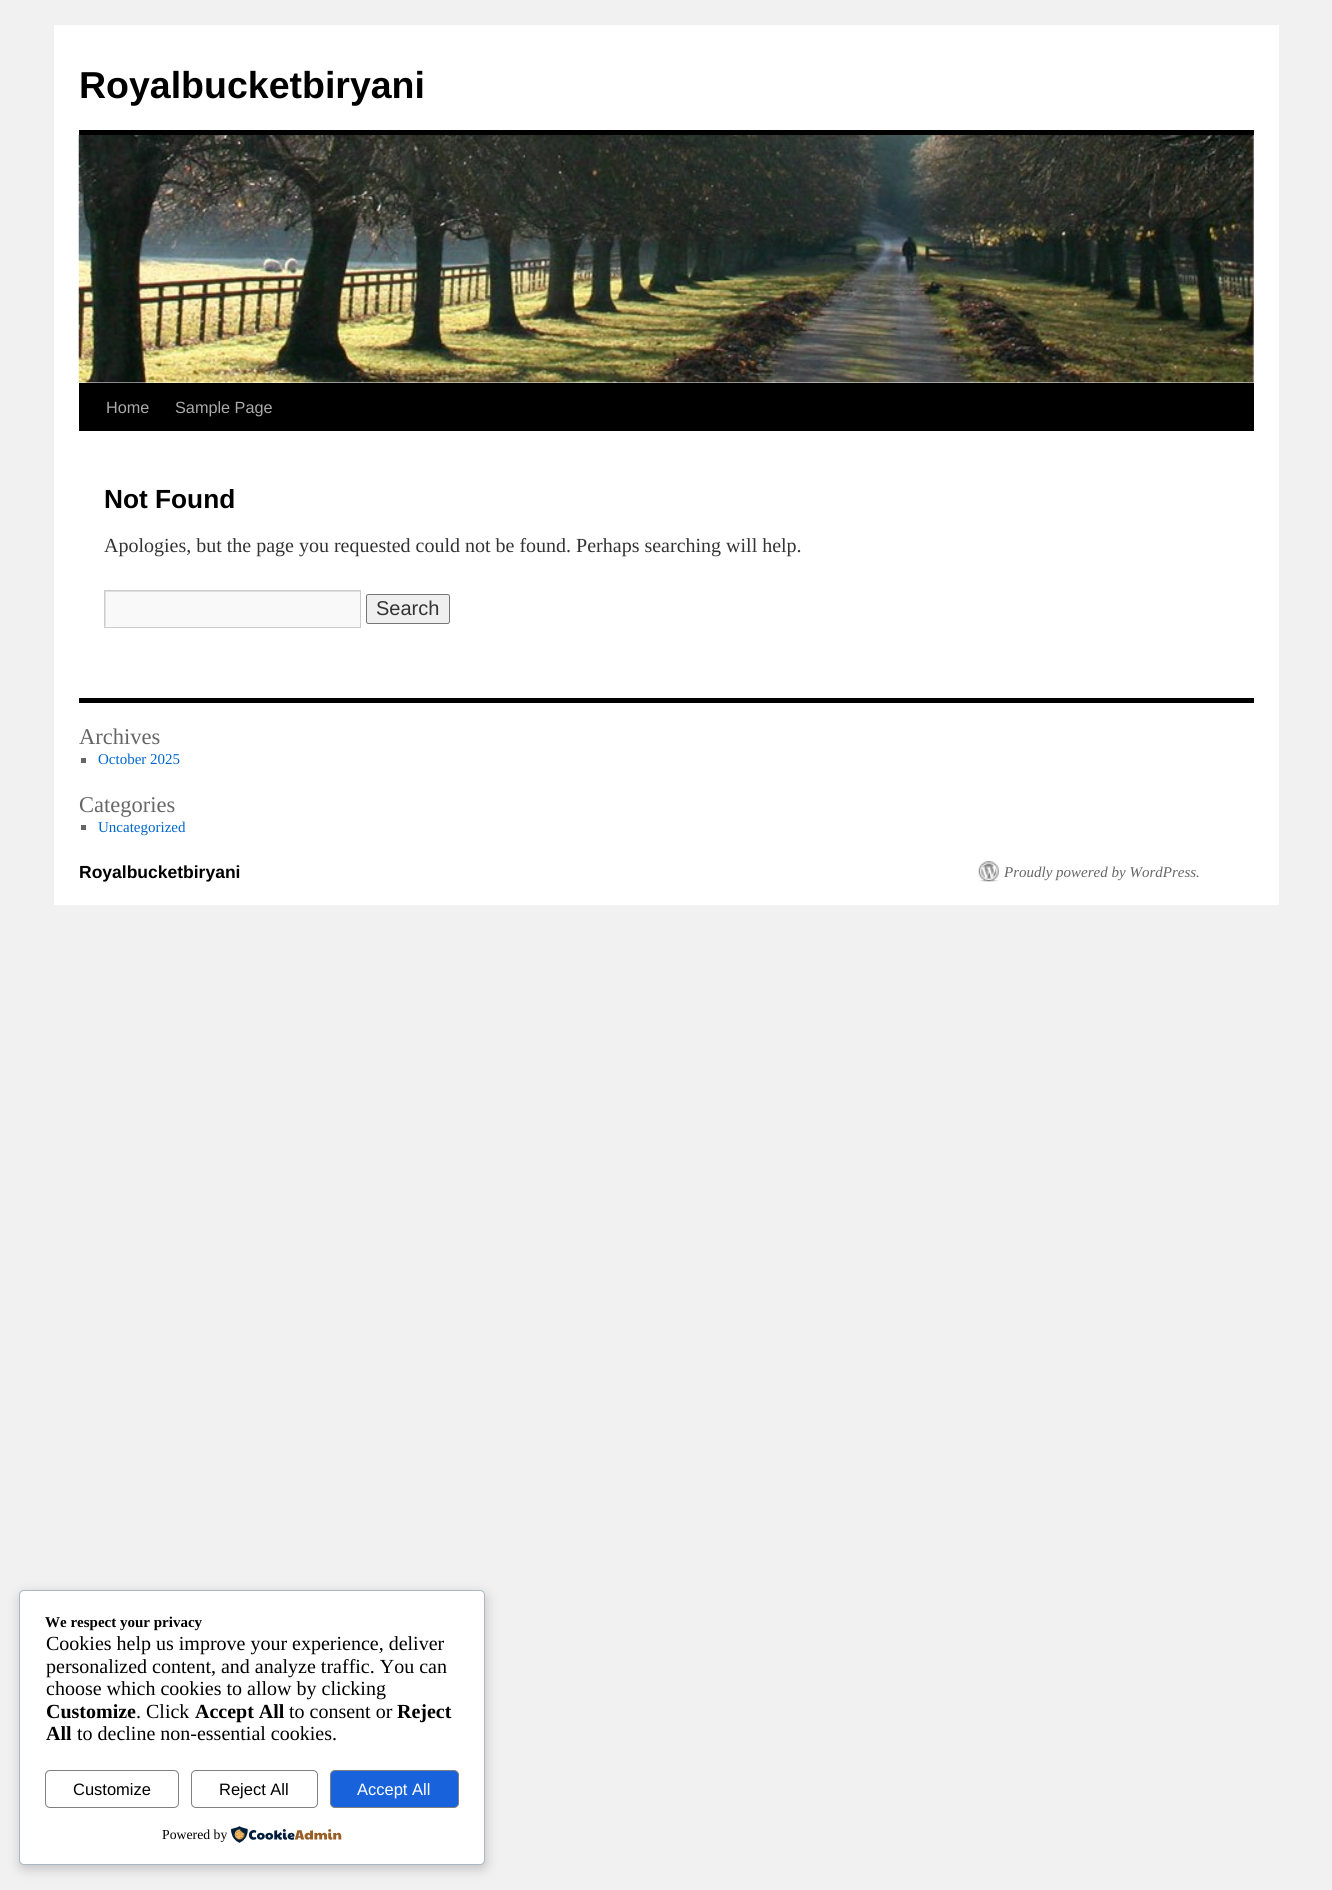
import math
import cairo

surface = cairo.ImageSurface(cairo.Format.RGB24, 1332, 1890)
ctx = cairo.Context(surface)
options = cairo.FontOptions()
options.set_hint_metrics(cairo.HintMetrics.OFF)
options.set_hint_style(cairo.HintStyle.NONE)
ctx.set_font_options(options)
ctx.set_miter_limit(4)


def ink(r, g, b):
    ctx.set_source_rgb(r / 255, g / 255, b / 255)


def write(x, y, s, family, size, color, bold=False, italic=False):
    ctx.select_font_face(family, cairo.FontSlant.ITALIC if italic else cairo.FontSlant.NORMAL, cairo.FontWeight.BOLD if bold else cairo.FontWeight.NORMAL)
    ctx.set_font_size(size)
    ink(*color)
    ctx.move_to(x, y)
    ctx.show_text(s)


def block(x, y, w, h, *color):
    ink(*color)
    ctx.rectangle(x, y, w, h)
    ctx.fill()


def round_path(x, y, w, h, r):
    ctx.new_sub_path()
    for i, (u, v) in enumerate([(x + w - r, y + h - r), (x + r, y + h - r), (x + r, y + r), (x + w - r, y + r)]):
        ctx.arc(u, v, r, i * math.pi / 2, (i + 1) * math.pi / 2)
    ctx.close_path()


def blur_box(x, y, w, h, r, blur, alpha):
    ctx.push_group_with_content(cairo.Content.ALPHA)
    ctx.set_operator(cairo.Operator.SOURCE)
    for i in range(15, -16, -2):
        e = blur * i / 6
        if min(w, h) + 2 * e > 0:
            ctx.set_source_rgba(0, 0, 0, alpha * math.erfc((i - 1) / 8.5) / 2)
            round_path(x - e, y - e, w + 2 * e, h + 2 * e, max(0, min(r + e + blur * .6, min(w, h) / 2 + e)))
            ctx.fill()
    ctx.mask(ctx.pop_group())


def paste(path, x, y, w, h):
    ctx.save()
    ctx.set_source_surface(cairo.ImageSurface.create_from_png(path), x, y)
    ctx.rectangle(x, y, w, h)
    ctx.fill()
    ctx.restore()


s1 = dict(family="Liberation Sans", size=37.5, color=(0, 0, 0), bold=True)
s2 = dict(family="Liberation Sans", size=16.25, color=(170, 170, 170))
s3 = dict(family="Liberation Sans", size=26.25, color=(0, 0, 0), bold=True)
s4 = dict(family="Liberation Serif", size=20, color=(51, 51, 51))
s5 = dict(family="Liberation Sans", size=20, color=(51, 51, 51))
s6 = dict(family="Liberation Serif", size=22.5, color=(102, 102, 102))
s7 = dict(family="Liberation Serif", size=15, color=(0, 102, 204))
s8 = dict(family="Liberation Sans", size=17.5, color=(0, 0, 0), bold=True)
s9 = dict(family="Liberation Serif", size=15, color=(102, 102, 102), italic=True)
s10 = dict(family="Liberation Serif", size=15, color=(0, 0, 0), bold=True)
s11 = dict(family="Liberation Serif", size=20, color=(0, 0, 0))
s12 = dict(family="Liberation Serif", size=20, color=(0, 0, 0), bold=True)
s13 = dict(family="Liberation Sans", size=16.5, color=(0, 0, 0))
s14 = dict(family="Liberation Sans", size=16.5, color=(255, 255, 255))
s15 = dict(family="Liberation Serif", size=13.75, color=(0, 0, 0))

ink(241, 241, 241)
ctx.paint()
block(54, 25, 1225, 880, 255, 255, 255)
write(79, 98, "Royalbucketbiryani", **s1)
block(79, 130, 1175, 5, 0, 0, 0)
block(79, 383, 1175, 48, 0, 0, 0)
paste("pic1.png", 78, 135, 1176, 248)
write(106, 413, "Home", **s2)
write(175, 413, "Sample Page", **s2)
write(104, 508, "Not Found", **s3)
write(104, 552, "Apologies, but the page you requested could not be found. Perhaps searching will help.", **s4)
block(105, 592, 255, 35, 249, 249, 249)
ctx.save()
ctx.rectangle(105, 591, 255, 35)
ctx.clip()
ink(224, 224, 224)
ctx.set_fill_rule(cairo.FillRule.EVEN_ODD)
ctx.new_path()
ctx.move_to(-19, 468)
ctx.line_to(484, 468)
ctx.line_to(484, 750)
ctx.line_to(-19, 750)
ctx.close_path()
ctx.move_to(106, 592)
ctx.line_to(361, 592)
ctx.line_to(361, 628)
ctx.line_to(106, 628)
ctx.close_path()
ctx.fill()
ctx.restore()
ctx.rectangle(104.5, 590.5, 256, 37)
ink(204, 204, 204)
ctx.set_line_width(1)
ctx.stroke()
ink(239, 239, 239)
round_path(366.5, 594.5, 83, 29, 2)
ctx.fill_preserve()
ink(118, 118, 118)
ctx.stroke()
write(376, 615, "Search", **s5)
block(79, 698, 1175, 5, 0, 0, 0)
write(79, 744, "Archives", **s6)
block(81, 758, 5, 5, 102, 102, 102)
write(98, 764, "October 2025", **s7)
write(79, 812, "Categories", **s6)
block(81, 825, 5, 5, 102, 102, 102)
write(98, 832, "Uncategorized", **s7)
write(79, 878, "Royalbucketbiryani", **s8)
paste("pic2.png", 978, 861, 21, 21)
write(1004, 877, "Proudly powered by WordPress.", **s9)
ink(0, 0, 0)
blur_box(20, 1594, 466, 275, 5, 6, 0.2)
ink(255, 255, 255)
round_path(19.5, 1590.5, 465, 274, 4.5)
ctx.fill_preserve()
ink(171, 184, 195)
ctx.stroke()
write(45, 1627, "We respect your privacy", **s10)
write(46, 1650, "Cookies help us improve your experience, deliver", **s11)
write(46, 1673, "personalized content, and analyze traffic. You can", **s11)
write(46, 1695, "choose which cookies to allow by clicking", **s11)
write(46, 1718, "Customize", **s12)
write(136, 1718, ". Click", **s11)
write(195, 1718, "Accept All", **s12)
write(289, 1718, "to consent or", **s11)
write(397, 1718, "Reject", **s12)
write(46, 1740, "All", **s12)
write(77, 1740, "to decline non-essential cookies.", **s11)
round_path(45.5, 1770.5, 133, 37, 4.5)
ink(128, 128, 128)
ctx.stroke()
write(73, 1795, "Customize", **s13)
round_path(191.5, 1770.5, 126, 37, 4.5)
ink(128, 128, 128)
ctx.stroke()
write(219, 1795, "Reject All", **s13)
ink(24, 99, 220)
round_path(330.5, 1770.5, 128, 37, 4.5)
ctx.fill_preserve()
ink(128, 128, 128)
ctx.stroke()
write(357, 1795, "Accept All", **s14)
write(162, 1839, "Powered by", **s15)
paste("pic3.png", 231, 1826, 111, 17)
surface.write_to_png("screenshot.png")
